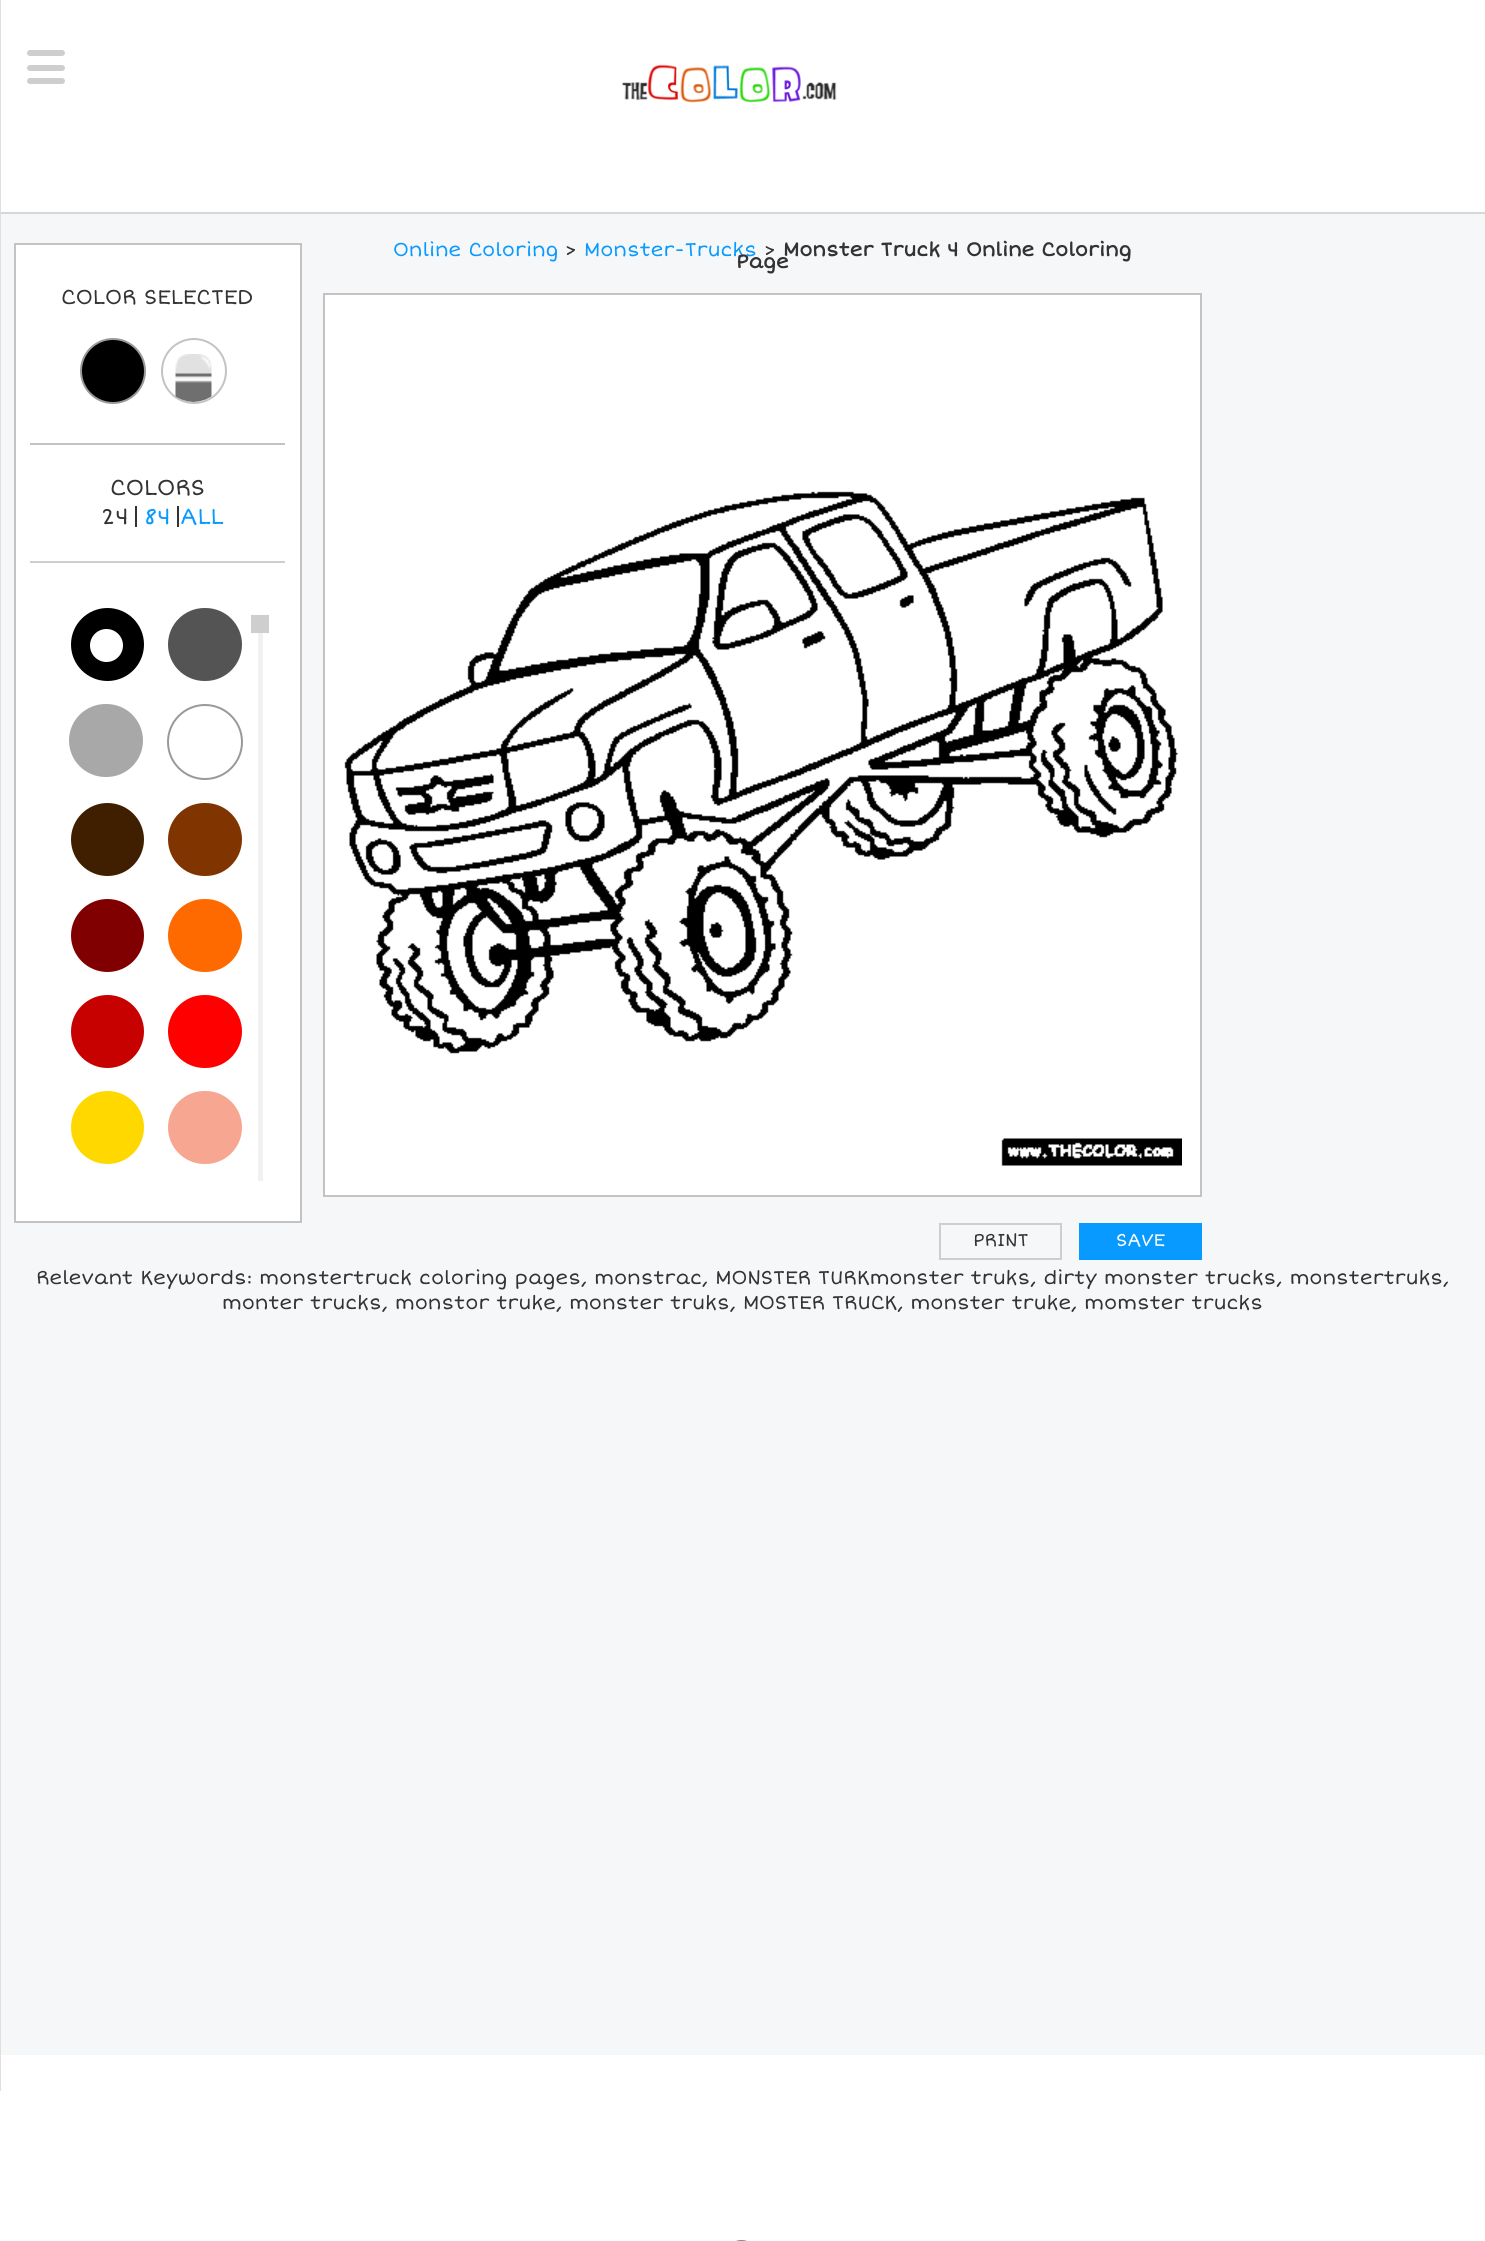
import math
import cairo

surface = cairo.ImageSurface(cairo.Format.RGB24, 1485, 2241)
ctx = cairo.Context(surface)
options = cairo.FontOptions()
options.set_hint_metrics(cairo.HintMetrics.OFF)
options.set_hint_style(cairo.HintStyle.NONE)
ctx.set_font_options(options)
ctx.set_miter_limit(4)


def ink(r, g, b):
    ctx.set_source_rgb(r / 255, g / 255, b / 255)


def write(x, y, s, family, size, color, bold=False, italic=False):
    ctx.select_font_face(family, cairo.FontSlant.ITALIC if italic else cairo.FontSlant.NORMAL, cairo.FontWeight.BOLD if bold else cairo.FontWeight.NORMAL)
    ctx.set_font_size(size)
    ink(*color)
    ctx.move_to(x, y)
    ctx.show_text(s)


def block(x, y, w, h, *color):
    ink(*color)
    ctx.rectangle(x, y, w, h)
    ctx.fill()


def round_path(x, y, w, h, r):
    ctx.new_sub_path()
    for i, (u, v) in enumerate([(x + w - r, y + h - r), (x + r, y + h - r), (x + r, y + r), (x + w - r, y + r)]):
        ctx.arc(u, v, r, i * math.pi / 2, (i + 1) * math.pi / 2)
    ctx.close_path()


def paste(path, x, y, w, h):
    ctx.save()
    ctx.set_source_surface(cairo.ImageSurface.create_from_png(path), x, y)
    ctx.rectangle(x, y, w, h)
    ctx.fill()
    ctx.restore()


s1 = dict(family="Short Stack", size=21, color=(51, 51, 51))
s2 = dict(family="Short Stack", size=22.5, color=(51, 51, 51))
s3 = dict(family="Short Stack", size=22.5, color=(9, 154, 255))
s4 = dict(family="Short Stack", size=19.5, color=(9, 154, 255))
s5 = dict(family="Short Stack", size=19.5, color=(51, 51, 51))
s6 = dict(family="Short Stack", size=19.5, color=(51, 51, 51), bold=True)
s7 = dict(family="Short Stack", size=18, color=(51, 51, 51))
s8 = dict(family="Short Stack", size=18, color=(255, 255, 255))

ink(246, 247, 249)
ctx.paint()
block(1, 0, 1484, 212, 255, 255, 255)
block(0, 212, 1485, 2, 215, 215, 215)
block(0, 0, 1, 2091, 223, 223, 223)
ink(206, 206, 206)
round_path(27, 50, 38, 6, 3)
ctx.fill()
round_path(27, 65, 38, 6, 3)
ctx.fill()
round_path(27, 78, 38, 6, 3)
ctx.fill()
paste("pic1.png", 621, 64, 216, 39)
ink(255, 255, 255)
ctx.rectangle(15, 244, 286, 978)
ctx.fill_preserve()
ink(195, 195, 195)
ctx.stroke()
write(61, 304, "COLOR SELECTED", **s1)
block(30, 443, 255, 2, 195, 195, 195)
ink(0, 0, 0)
ctx.new_path()
ctx.arc(113, 371, 32, 0, 2 * math.pi)
ctx.fill_preserve()
ink(153, 153, 153)
ctx.stroke()
ctx.arc(194, 371, 32, 0, 2 * math.pi)
ink(195, 195, 195)
ctx.stroke()
paste("pic2.png", 175, 354, 37, 48)
block(30, 561, 255, 2, 206, 206, 206)
write(110, 495, "COLORS", **s2)
write(101, 524, "24", **s2)
block(135, 506, 2, 21, 51, 51, 51)
write(144, 524, "84", **s3)
block(177, 506, 2, 21, 51, 51, 51)
write(180, 524, "ALL", **s3)
ink(0, 0, 0)
ctx.new_path()
ctx.arc(107.5, 644.5, 36.5, 0, 2 * math.pi)
ctx.fill()
ink(255, 255, 255)
ctx.arc(106.5, 645.5, 16.5, 0, 2 * math.pi)
ctx.fill()
ink(84, 84, 84)
round_path(168, 608, 74, 73, 36.5)
ctx.fill()
ink(168, 168, 168)
round_path(69, 704, 74, 73, 36.5)
ctx.fill()
ctx.arc(205, 742, 37, 0, 2 * math.pi)
ink(153, 153, 153)
ctx.stroke()
ink(64, 31, 0)
ctx.arc(107.5, 839.5, 36.5, 0, 2 * math.pi)
ctx.fill()
ink(128, 52, 0)
round_path(168, 803, 74, 73, 36.5)
ctx.fill()
ink(128, 0, 1)
ctx.arc(107.5, 935.5, 36.5, 0, 2 * math.pi)
ctx.fill()
ink(254, 106, 0)
round_path(168, 899, 74, 73, 36.5)
ctx.fill()
ink(199, 0, 0)
ctx.arc(107.5, 1031.5, 36.5, 0, 2 * math.pi)
ctx.fill()
ink(254, 0, 0)
round_path(168, 995, 74, 73, 36.5)
ctx.fill()
ink(255, 216, 0)
ctx.arc(107.5, 1127.5, 36.5, 0, 2 * math.pi)
ctx.fill()
ink(247, 166, 145)
round_path(168, 1091, 74, 73, 36.5)
ctx.fill()
block(258, 633, 5, 548, 241, 241, 241)
block(251, 615, 18, 18, 206, 206, 206)
write(393, 256, "Online Coloring", **s4)
write(565, 256, ">", **s5)
write(584, 256, "Monster-Trucks", **s4)
write(764, 256, ">", **s5)
write(783, 256, "Monster Truck 4 Online Coloring", **s6)
write(736, 268, "Page", **s6)
ink(255, 255, 255)
ctx.rectangle(324, 294, 877, 902)
ctx.fill_preserve()
ink(195, 195, 195)
ctx.stroke()
paste("pic3.png", 344, 491, 838, 675)
ctx.rectangle(940, 1224, 121, 35)
ink(206, 206, 206)
ctx.stroke()
write(973, 1246, "PRINT", **s7)
block(1079, 1223, 123, 37, 9, 154, 255)
write(1116, 1246, "SAVE", **s8)
write(36, 1284, "Relevant Keywords: monstertruck coloring pages, monstrac, MONSTER TURKmonster truks, dirty monster trucks, monstertruks,", **s5)
write(222, 1309, "monter trucks, monstor truke, monster truks, MOSTER TRUCK, monster truke, momster trucks", **s5)
block(1, 2055, 1484, 36, 255, 255, 255)
block(0, 2091, 1485, 150, 255, 255, 255)
round_path(726, 2241, 31, 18, 15.5)
ink(249, 249, 249)
ctx.stroke()
round_path(726, 2241, 31, 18, 15.5)
ink(136, 136, 136)
ctx.stroke()
surface.write_to_png("screenshot.png")
